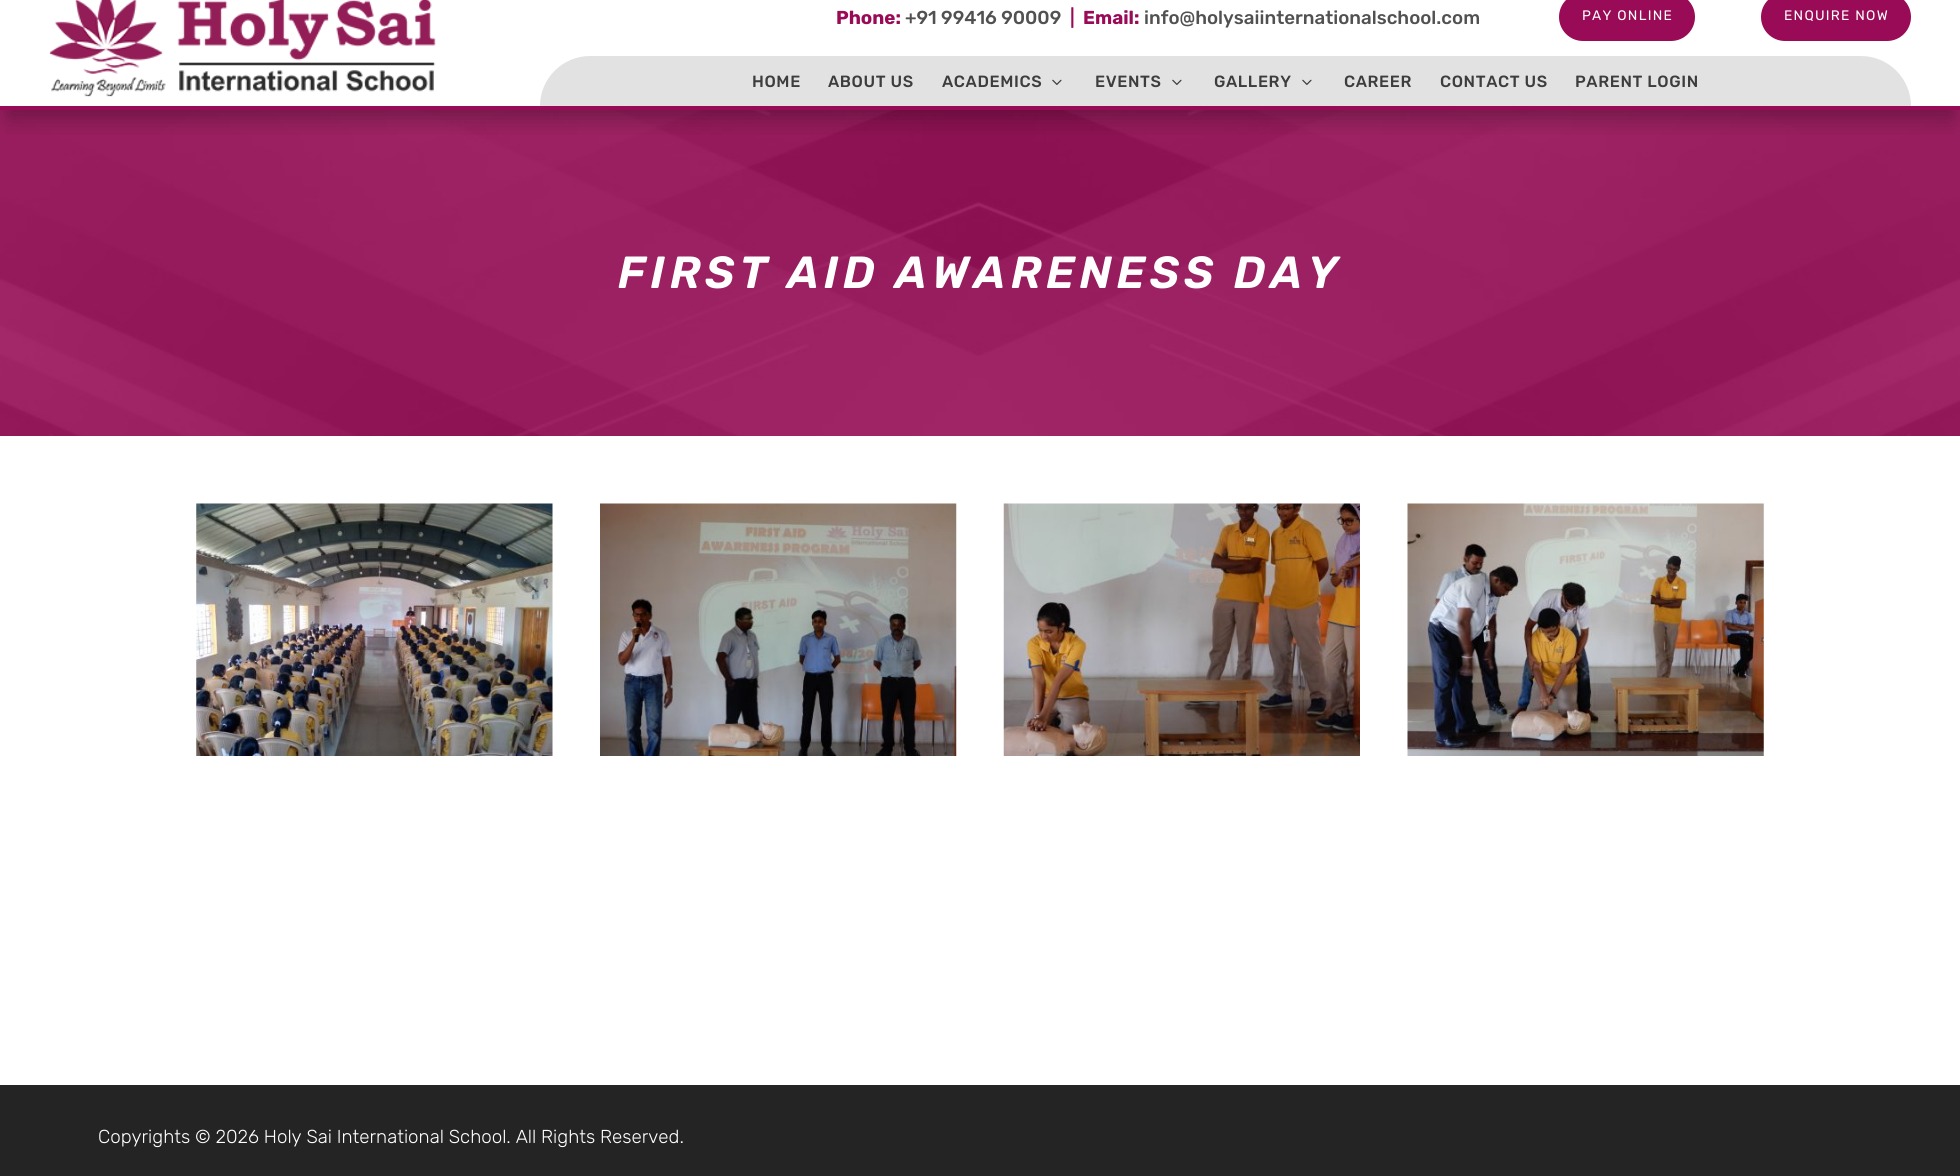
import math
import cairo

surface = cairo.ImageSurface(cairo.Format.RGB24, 1960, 1176)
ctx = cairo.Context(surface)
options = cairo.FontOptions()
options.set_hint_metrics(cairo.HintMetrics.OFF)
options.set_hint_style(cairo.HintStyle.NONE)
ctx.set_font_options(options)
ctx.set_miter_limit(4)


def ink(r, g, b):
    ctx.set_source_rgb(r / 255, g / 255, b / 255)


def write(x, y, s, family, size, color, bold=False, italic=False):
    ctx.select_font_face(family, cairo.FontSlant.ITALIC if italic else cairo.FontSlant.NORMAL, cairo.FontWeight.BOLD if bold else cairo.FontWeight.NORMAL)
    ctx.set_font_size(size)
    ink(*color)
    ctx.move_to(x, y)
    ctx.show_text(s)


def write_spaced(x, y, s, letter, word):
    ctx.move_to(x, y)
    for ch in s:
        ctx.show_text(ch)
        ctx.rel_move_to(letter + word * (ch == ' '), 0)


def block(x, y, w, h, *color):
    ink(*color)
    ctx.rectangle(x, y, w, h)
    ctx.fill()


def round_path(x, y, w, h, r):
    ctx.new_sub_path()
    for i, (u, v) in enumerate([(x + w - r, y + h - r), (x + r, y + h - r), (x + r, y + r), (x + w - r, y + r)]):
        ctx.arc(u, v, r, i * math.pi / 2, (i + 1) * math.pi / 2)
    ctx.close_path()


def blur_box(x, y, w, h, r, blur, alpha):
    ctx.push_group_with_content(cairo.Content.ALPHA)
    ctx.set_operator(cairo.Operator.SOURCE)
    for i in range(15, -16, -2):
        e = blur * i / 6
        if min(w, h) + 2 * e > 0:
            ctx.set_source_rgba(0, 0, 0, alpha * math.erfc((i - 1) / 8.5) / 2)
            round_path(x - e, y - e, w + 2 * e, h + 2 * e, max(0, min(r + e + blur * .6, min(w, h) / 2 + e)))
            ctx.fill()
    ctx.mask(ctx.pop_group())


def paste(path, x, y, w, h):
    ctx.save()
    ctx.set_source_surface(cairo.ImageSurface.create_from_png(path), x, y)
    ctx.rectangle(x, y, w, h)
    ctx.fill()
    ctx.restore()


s1 = dict(family="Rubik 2 Light", size=18.75, color=(153, 11, 86))
s2 = dict(family="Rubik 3 Light", size=18.75, color=(81, 81, 81))
s3 = dict(family="Rubik 3 Light", size=18.75, color=(153, 11, 86))
s4 = dict(family="Rubik Light", size=18.75, color=(255, 255, 255))

ink(255, 255, 255)
ctx.paint()
block(0, 110, 1960, 326, 153, 11, 86)
paste("pic3.png", 0, 110, 1960, 326)
ctx.save()
ctx.rectangle(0, 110, 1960, 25)
ctx.clip()
ink(0, 0, 0)
blur_box(8, 9, 1945, 109, 0, 11, 0.3)
ctx.restore()
block(0, 106, 1960, 4, 153, 11, 86)
write(836, 24, "Phone:", **s1)
write(905, 24, "+91 99416 90009", **s2)
write(1070, 24, "|", **s3)
write(1083, 24, "Email:", **s1)
write(1144, 24, "info@holysaiinternationalschool.com", **s2)
ink(153, 11, 86)
round_path(1563.5, -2.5, 127, 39, 19.5)
ctx.fill_preserve()
ctx.set_line_width(9)
ctx.stroke()
ctx.select_font_face("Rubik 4 Light")
ctx.set_font_size(13.75)
ink(255, 255, 255)
write_spaced(1582, 20, "PAY ONLINE", 1.25, 0)
ink(153, 11, 86)
round_path(1765.5, -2.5, 141, 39, 19.5)
ctx.fill_preserve()
ctx.stroke()
ink(255, 255, 255)
write_spaced(1784, 20, "ENQUIRE NOW", 1.25, 0)
paste("pic1.png", 49, 0, 387, 97)
ink(226, 226, 226)
ctx.new_path()
ctx.move_to(590, 56)
ctx.line_to(1861, 56)
ctx.curve_to(1888.5, 56, 1911, 78.5, 1911, 106)
ctx.line_to(540, 106)
ctx.curve_to(540, 78.5, 562.5, 56, 590, 56)
ctx.close_path()
ctx.fill()
ctx.select_font_face("Rubik 3 Light")
ctx.set_font_size(16.25)
ink(61, 61, 61)
write_spaced(752, 87, "HOME", 0.6, 0)
write_spaced(828, 87, "ABOUT US", 0.6, 0)
write_spaced(942, 87, "ACADEMICS", 0.6, 0)
paste("pic2.png", 1052, 79, 10, 6)
write_spaced(1095, 87, "EVENTS", 0.6, 0)
paste("pic2.png", 1172, 79, 10, 6)
write_spaced(1214, 87, "GALLERY", 0.6, 0)
paste("pic2.png", 1302, 79, 10, 6)
write_spaced(1344, 87, "CAREER", 0.6, 0)
write_spaced(1440, 87, "CONTACT US", 0.6, 0)
write_spaced(1575, 87, "PARENT LOGIN", 0.6, 0)
ctx.select_font_face("Rubik SemiBold", cairo.FontSlant.ITALIC)
ctx.set_font_size(45)
ink(255, 255, 255)
write_spaced(618, 288, "FIRST AID AWARENESS DAY", 5, 0)
paste("pic4.png", 196, 503, 357, 253)
paste("pic5.png", 600, 503, 357, 253)
paste("pic6.png", 1003, 503, 357, 253)
paste("pic7.png", 1407, 503, 357, 253)
block(0, 1085, 1960, 91, 36, 36, 36)
write(98, 1143, "Copyrights © 2026 Holy Sai International School. All Rights Reserved.", **s4)
surface.write_to_png("screenshot.png")
